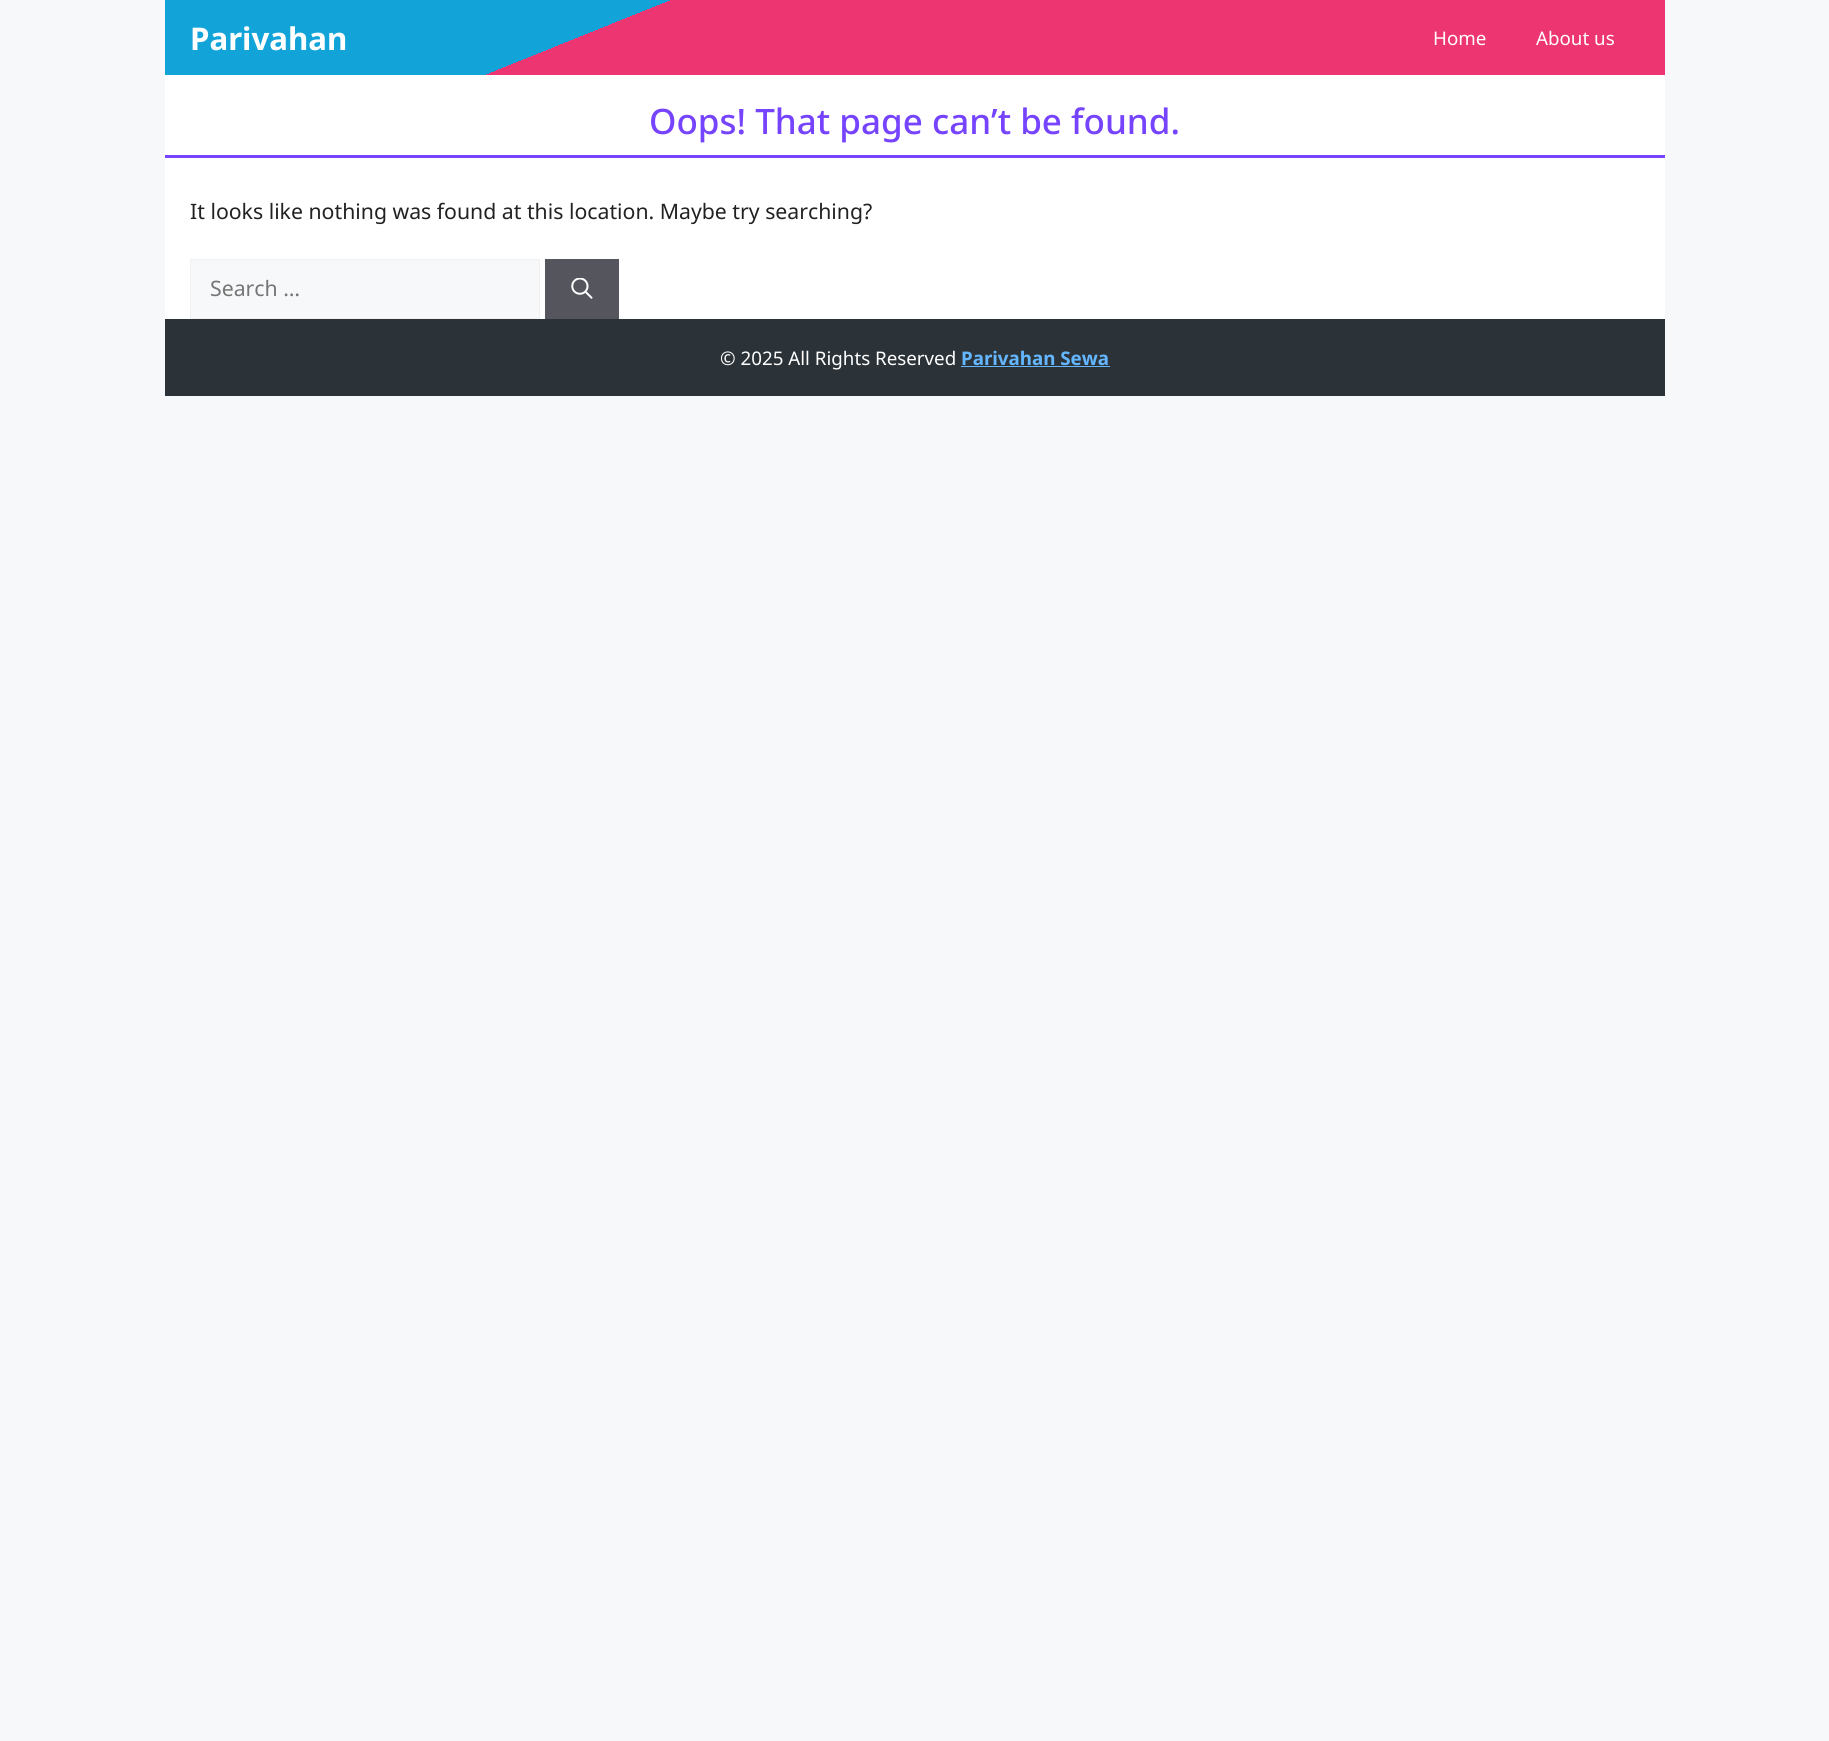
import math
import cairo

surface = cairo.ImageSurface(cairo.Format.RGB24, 1829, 1741)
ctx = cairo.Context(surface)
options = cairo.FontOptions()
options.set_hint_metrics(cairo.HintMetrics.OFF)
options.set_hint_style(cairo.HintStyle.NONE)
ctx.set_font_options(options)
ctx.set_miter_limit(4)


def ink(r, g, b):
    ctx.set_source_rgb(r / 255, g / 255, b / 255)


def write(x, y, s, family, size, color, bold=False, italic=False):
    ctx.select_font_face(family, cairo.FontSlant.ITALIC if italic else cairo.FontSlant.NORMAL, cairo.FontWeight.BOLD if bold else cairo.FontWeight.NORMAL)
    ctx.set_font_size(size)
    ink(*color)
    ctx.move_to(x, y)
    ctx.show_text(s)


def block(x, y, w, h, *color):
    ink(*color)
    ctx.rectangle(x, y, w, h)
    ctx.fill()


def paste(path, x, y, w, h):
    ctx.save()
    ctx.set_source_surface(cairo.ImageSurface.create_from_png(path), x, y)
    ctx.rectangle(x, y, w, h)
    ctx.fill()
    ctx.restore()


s1 = dict(family="Noto Sans", size=31.25, color=(255, 255, 255), bold=True)
s2 = dict(family="Noto Sans", size=18.75, color=(255, 255, 255))
s3 = dict(family="Noto Sans Medium", size=35, color=(118, 67, 255))
s4 = dict(family="Noto Sans", size=21.25, color=(34, 34, 34))
s5 = dict(family="Noto Sans", size=21.25, color=(117, 117, 117))
s6 = dict(family="Noto Sans", size=18.75, color=(99, 182, 255), bold=True)

ink(247, 248, 249)
ctx.paint()
gradient = cairo.LinearGradient(1033, 330, 797, -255)
gradient.add_color_stop_rgba(0.7, 0.929, 0.208, 0.447, 1)
gradient.add_color_stop_rgba(0.7, 0.071, 0.643, 0.851, 1)
ctx.set_source(gradient)
ctx.rectangle(165, 0, 1500, 75)
ctx.fill()
write(190, 50, "Parivahan", **s1)
write(1433, 45, "Home", **s2)
write(1536, 45, "About us", **s2)
block(165, 75, 1500, 244, 255, 255, 255)
block(165, 155, 1500, 3, 118, 67, 255)
write(649, 134, "Oops! That page can’t be found.", **s3)
write(190, 219, "It looks like nothing was found at this location. Maybe try searching?", **s4)
ink(247, 248, 249)
ctx.rectangle(190.5, 259.5, 349, 59)
ctx.fill_preserve()
ink(240, 240, 240)
ctx.set_line_width(1)
ctx.stroke()
write(210, 296, "Search …", **s5)
block(545, 259, 74, 60, 85, 85, 94)
paste("pic1.png", 571, 278, 22, 21)
block(165, 319, 1500, 77, 44, 51, 56)
write(720, 365, "© 2025 All Rights Reserved", **s2)
write(961, 365, "Parivahan Sewa", **s6)
block(961, 366, 149, 1, 99, 182, 255)
surface.write_to_png("screenshot.png")
